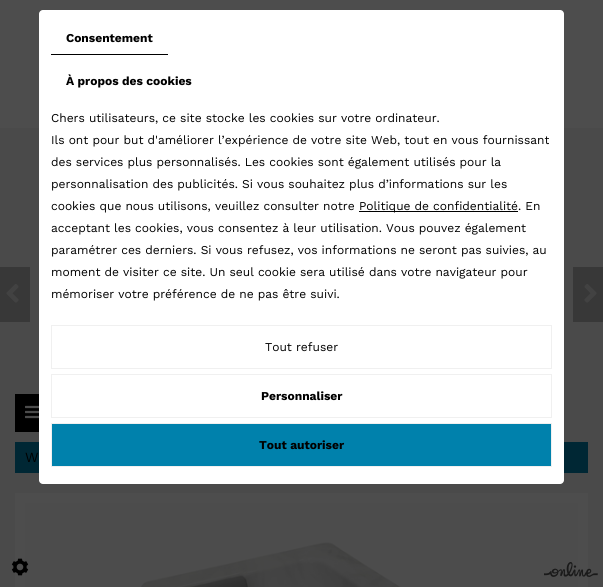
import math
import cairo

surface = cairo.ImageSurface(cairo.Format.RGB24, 603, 587)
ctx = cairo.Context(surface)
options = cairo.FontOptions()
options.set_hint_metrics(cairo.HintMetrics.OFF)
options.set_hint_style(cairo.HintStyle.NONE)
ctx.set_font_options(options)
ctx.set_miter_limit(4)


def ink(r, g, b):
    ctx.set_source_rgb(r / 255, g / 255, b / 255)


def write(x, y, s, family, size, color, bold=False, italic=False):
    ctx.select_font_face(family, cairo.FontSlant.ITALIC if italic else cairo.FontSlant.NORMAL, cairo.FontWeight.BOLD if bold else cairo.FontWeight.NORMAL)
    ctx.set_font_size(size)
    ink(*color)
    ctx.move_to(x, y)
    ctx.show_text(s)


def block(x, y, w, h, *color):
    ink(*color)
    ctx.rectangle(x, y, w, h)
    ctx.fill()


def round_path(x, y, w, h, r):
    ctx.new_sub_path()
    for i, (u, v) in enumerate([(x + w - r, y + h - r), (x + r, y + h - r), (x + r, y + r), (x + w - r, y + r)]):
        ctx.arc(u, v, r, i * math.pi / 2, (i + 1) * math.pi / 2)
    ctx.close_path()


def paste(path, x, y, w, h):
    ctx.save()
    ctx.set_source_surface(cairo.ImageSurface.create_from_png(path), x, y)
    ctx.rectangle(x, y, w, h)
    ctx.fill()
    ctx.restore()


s1 = dict(family="Work Sans", size=12, color=(0, 0, 0), bold=True)
s2 = dict(family="Work Sans", size=12, color=(0, 0, 0))
s3 = dict(family="Work Sans", size=14, color=(0, 0, 0))

ink(74, 74, 74)
ctx.paint()
block(0, 0, 603, 128, 77, 77, 77)
block(15, 442, 573, 31, 0, 39, 52)
ink(255, 255, 255)
round_path(39, 10, 525, 474, 4)
ctx.fill()
block(51, 54, 117, 1, 0, 0, 0)
write(66, 42, "Consentement", **s1)
write(66, 85, "À propos des cookies", **s1)
write(51, 122, "Chers utilisateurs, ce site stocke les cookies sur votre ordinateur.", **s2)
write(51, 144, "Ils ont pour but d'améliorer l’expérience de votre site Web, tout en vous fournissant", **s2)
write(51, 166, "des services plus personnalisés. Les cookies sont également utilisés pour la", **s2)
write(51, 188, "personnalisation des publicités. Si vous souhaitez plus d’informations sur les", **s2)
write(51, 210, "cookies que nous utilisons, veuillez consulter notre", **s2)
block(359, 211, 159, 1, 0, 0, 0)
write(359, 210, "Politique de confidentialité. En", **s2)
write(51, 232, "acceptant les cookies, vous consentez à leur utilisation. Vous pouvez également", **s2)
write(51, 254, "paramétrer ces derniers. Si vous refusez, vos informations ne seront pas suivies, au", **s2)
write(51, 276, "moment de visiter ce site. Un seul cookie sera utilisé dans votre navigateur pour", **s2)
write(51, 298, "mémoriser votre préférence de ne pas être suivi.", **s2)
ctx.rectangle(51.5, 325.5, 500, 43)
ink(240, 240, 240)
ctx.set_line_width(1)
ctx.stroke()
write(265, 351, "Tout refuser", **s2)
ctx.rectangle(51.5, 374.5, 500, 43)
ink(240, 240, 240)
ctx.stroke()
write(261, 400, "Personnaliser", **s1)
ink(0, 129, 172)
ctx.rectangle(51.5, 423.5, 500, 43)
ctx.fill_preserve()
ink(240, 240, 240)
ctx.stroke()
write(259, 449, "Tout autoriser", **s1)
block(15, 394, 24, 38, 0, 0, 0)
paste("pic1.png", 25, 405, 14, 14)
block(0, 267, 30, 55, 56, 56, 56)
paste("pic2.png", 6, 284, 13, 19)
block(573, 267, 30, 55, 56, 56, 56)
paste("pic3.png", 584, 284, 13, 19)
ctx.rectangle(20, 498, 563, 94)
ink(77, 77, 77)
ctx.set_line_width(10)
ctx.stroke()
paste("pic4.png", 25, 503, 553, 84)
write(25, 462, "W", **s3)
paste("pic5.png", 11, 558, 18, 18)
paste("pic6.png", 544, 562, 54, 15)
surface.write_to_png("screenshot.png")
